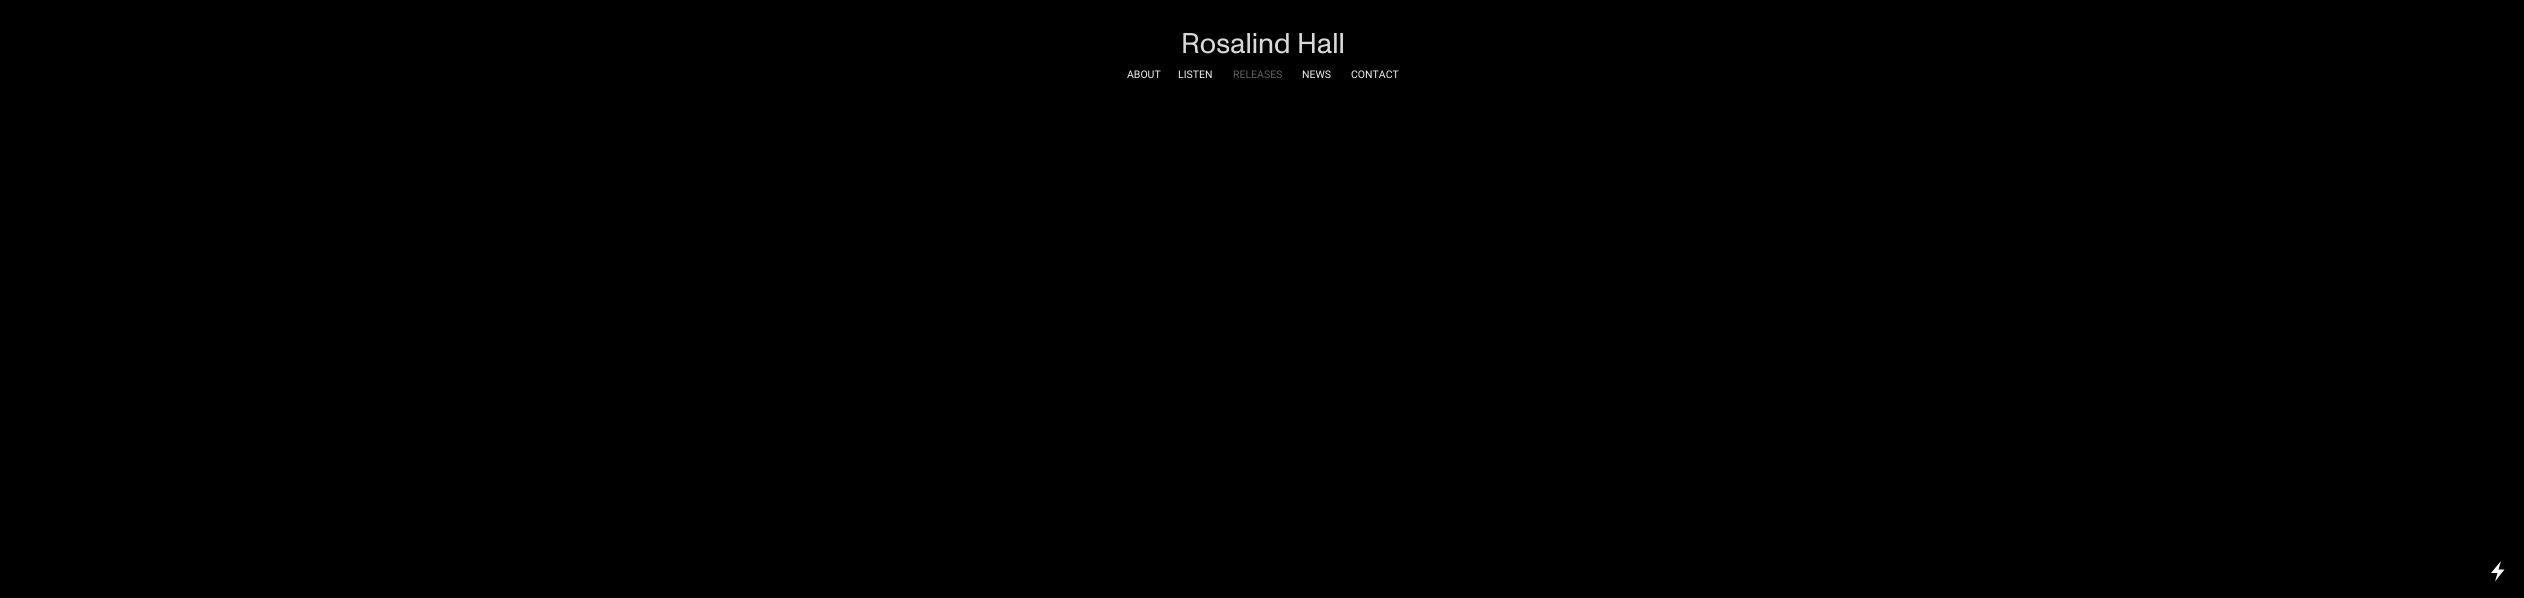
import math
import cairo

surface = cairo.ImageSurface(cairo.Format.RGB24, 2524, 598)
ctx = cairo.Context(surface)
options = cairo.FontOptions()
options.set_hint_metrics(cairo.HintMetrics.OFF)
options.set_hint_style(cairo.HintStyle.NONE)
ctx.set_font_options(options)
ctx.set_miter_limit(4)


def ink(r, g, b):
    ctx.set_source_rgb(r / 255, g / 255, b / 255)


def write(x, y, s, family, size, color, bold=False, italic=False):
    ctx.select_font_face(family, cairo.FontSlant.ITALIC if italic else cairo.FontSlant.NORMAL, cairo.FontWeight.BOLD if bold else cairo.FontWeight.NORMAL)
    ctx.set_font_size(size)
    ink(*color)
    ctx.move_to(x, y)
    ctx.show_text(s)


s1 = dict(family="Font", size=28.5, color=(217, 217, 217))
s2 = dict(family="Roboto", size=10.5, color=(242, 242, 242))
s3 = dict(family="Roboto", size=10.5, color=(97, 97, 97))

ink(0, 0, 0)
ctx.paint()
write(1181, 53, "Rosalind Hall", **s1)
write(1127, 78, "ABOUT", **s2)
write(1178, 78, "LISTEN", **s2)
write(1233, 78, "RELEASES", **s3)
write(1302, 78, "NEWS", **s2)
write(1351, 78, "CONTACT", **s2)
ink(255, 255, 255)
ctx.new_path()
ctx.move_to(2504.5, 569.5)
ctx.line_to(2498.5, 569.5)
ctx.line_to(2501, 561)
ctx.line_to(2491, 573)
ctx.line_to(2497.5, 573)
ctx.line_to(2495, 581.5)
ctx.close_path()
ctx.fill()
surface.write_to_png("screenshot.png")
